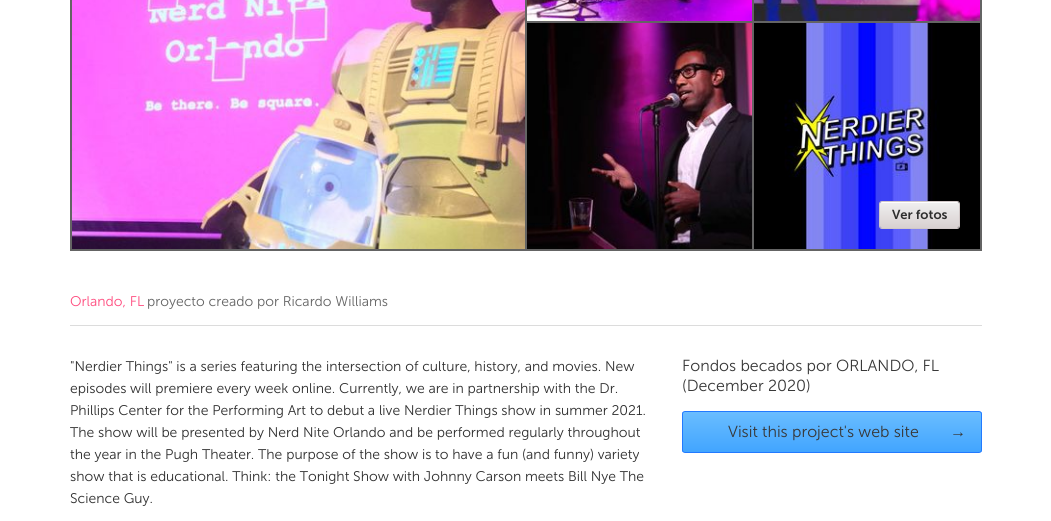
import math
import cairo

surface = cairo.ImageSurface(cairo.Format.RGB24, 1051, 521)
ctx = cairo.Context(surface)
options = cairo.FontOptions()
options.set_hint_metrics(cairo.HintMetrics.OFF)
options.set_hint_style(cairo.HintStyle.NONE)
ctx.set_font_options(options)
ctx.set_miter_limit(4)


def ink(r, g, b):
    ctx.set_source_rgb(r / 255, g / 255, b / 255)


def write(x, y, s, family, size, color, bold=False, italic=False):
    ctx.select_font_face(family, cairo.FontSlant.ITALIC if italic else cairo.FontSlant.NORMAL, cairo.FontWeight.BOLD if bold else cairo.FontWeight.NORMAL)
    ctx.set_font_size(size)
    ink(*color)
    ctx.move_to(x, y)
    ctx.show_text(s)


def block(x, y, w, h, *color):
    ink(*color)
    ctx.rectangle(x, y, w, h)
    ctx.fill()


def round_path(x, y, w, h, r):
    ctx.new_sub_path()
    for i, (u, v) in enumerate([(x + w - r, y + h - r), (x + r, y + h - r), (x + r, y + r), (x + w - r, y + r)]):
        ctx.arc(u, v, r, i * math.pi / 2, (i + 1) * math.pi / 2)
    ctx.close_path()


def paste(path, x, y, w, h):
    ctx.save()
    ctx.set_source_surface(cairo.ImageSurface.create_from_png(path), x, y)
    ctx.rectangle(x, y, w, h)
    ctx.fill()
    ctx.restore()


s1 = dict(family="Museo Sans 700 SemiBold", size=13, color=(46, 46, 46))
s2 = dict(family="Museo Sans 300 Light", size=14, color=(255, 75, 126))
s3 = dict(family="Museo Sans 300 Light", size=14, color=(100, 100, 100))
s4 = dict(family="Museo Sans 300 Light", size=14, color=(46, 46, 46))
s5 = dict(family="Museo Sans 300 Light", size=16, color=(55, 55, 55))
s6 = dict(family="Liberation Sans", size=16, color=(55, 55, 55))

ink(255, 255, 255)
ctx.paint()
block(70, 0, 912, 251, 100, 100, 100)
paste("pic1.png", 72, 0, 453, 249)
paste("pic2.png", 527, 0, 225, 21)
paste("pic3.png", 754, 0, 226, 21)
paste("pic4.png", 527, 23, 225, 226)
paste("pic5.png", 754, 23, 226, 226)
gradient = cairo.LinearGradient(920, 202, 920, 228)
gradient.add_color_stop_rgba(0, 0.941, 0.941, 0.941, 1)
gradient.add_color_stop_rgba(1, 0.847, 0.816, 0.816, 1)
ctx.set_source(gradient)
round_path(880, 202, 79, 26, 2)
ctx.fill()
ink(255, 255, 255)
ctx.new_path()
ctx.move_to(882, 203)
ctx.line_to(957, 203)
ctx.curve_to(958, 203, 959, 204, 959, 205)
ctx.curve_to(959, 199, 948, 202, 944, 202)
ctx.line_to(894, 202)
ctx.curve_to(891, 202, 880, 199, 880, 205)
ctx.curve_to(880, 204, 881, 203, 882, 203)
ctx.close_path()
ctx.fill()
round_path(879.5, 201.5, 80, 27, 2.5)
ink(209, 200, 200)
ctx.set_line_width(1)
ctx.stroke()
write(892, 219, "Ver fotos", **s1)
block(70, 325, 912, 1, 220, 220, 220)
write(70, 306, "Orlando, FL", **s2)
write(147, 306, "proyecto creado por Ricardo Williams", **s3)
write(70, 371, "\"Nerdier Things\" is a series featuring the intersection of culture, history, and movies. New", **s4)
write(70, 393, "episodes will premiere every week online. Currently, we are in partnership with the Dr.", **s4)
write(70, 415, "Phillips Center for the Performing Art to debut a live Nerdier Things show in summer 2021.", **s4)
write(70, 437, "The show will be presented by Nerd Nite Orlando and be performed regularly throughout", **s4)
write(70, 459, "the year in the Pugh Theater. The purpose of the show is to have a fun (and funny) variety", **s4)
write(70, 481, "show that is educational. Think: the Tonight Show with Johnny Carson meets Bill Nye The", **s4)
write(70, 503, "Science Guy.", **s4)
write(682, 371, "Fondos becados por ORLANDO, FL", **s5)
write(682, 391, "(December 2020)", **s5)
ctx.save()
round_path(682, 411, 300, 42, 3)
ctx.clip()
gradient = cairo.LinearGradient(832, 412, 832, 452)
gradient.add_color_stop_rgba(0, 0.416, 0.741, 1, 1)
gradient.add_color_stop_rgba(1, 0.255, 0.647, 1, 1)
ctx.set_source(gradient)
ctx.rectangle(682, 412, 300, 40)
ctx.fill()
ctx.restore()
round_path(682.5, 411.5, 299, 41, 2.5)
ink(34, 122, 255)
ctx.stroke()
write(728, 437, "Visit this project's web site", **s5)
write(950, 437, "→", **s6)
surface.write_to_png("screenshot.png")
